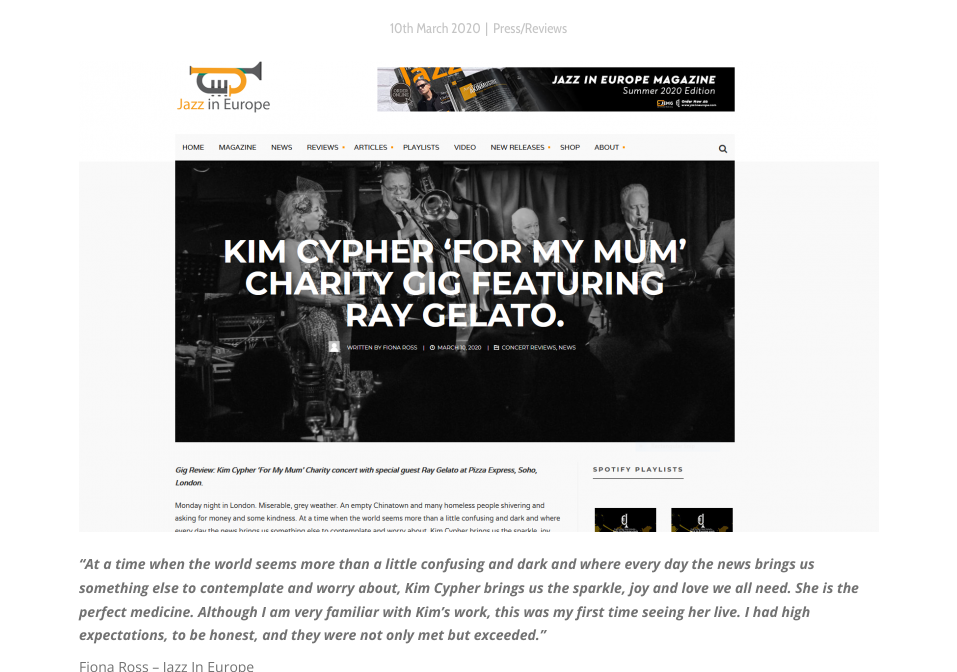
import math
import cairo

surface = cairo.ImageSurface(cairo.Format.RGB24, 957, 672)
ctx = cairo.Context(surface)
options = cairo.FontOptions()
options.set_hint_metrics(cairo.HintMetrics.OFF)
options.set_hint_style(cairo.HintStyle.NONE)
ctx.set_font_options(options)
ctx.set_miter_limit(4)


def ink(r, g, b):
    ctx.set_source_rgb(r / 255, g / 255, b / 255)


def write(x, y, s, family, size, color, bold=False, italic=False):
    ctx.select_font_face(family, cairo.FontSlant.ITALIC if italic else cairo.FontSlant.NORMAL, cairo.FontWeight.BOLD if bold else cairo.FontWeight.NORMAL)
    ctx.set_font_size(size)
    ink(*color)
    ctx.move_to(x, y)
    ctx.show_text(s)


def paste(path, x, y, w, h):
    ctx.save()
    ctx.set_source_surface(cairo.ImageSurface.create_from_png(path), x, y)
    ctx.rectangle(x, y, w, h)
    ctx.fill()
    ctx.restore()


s1 = dict(family="Cabin Condensed", size=14, color=(197, 197, 197))
s2 = dict(family="Open Sans", size=14, color=(114, 114, 114), bold=True, italic=True)
s3 = dict(family="Open Sans", size=14, color=(114, 114, 114))

ink(255, 255, 255)
ctx.paint()
write(390, 33, "10th March 2020", **s1)
write(485, 33, "|", **s1)
write(493, 33, "Press/Reviews", **s1)
paste("pic1.png", 79, 61, 800, 471)
write(79, 569, "“At a time when the world seems more than a little confusing and dark and where every day the news brings us", **s2)
write(79, 593, "something else to contemplate and worry about, Kim Cypher brings us the sparkle, joy and love we all need. She is the", **s2)
write(79, 617, "perfect medicine. Although I am very familiar with Kim’s work, this was my first time seeing her live. I had high", **s2)
write(79, 640, "expectations, to be honest, and they were not only met but exceeded.”", **s2)
write(79, 672, "Fiona Ross – Jazz In Europe", **s3)
surface.write_to_png("screenshot.png")
